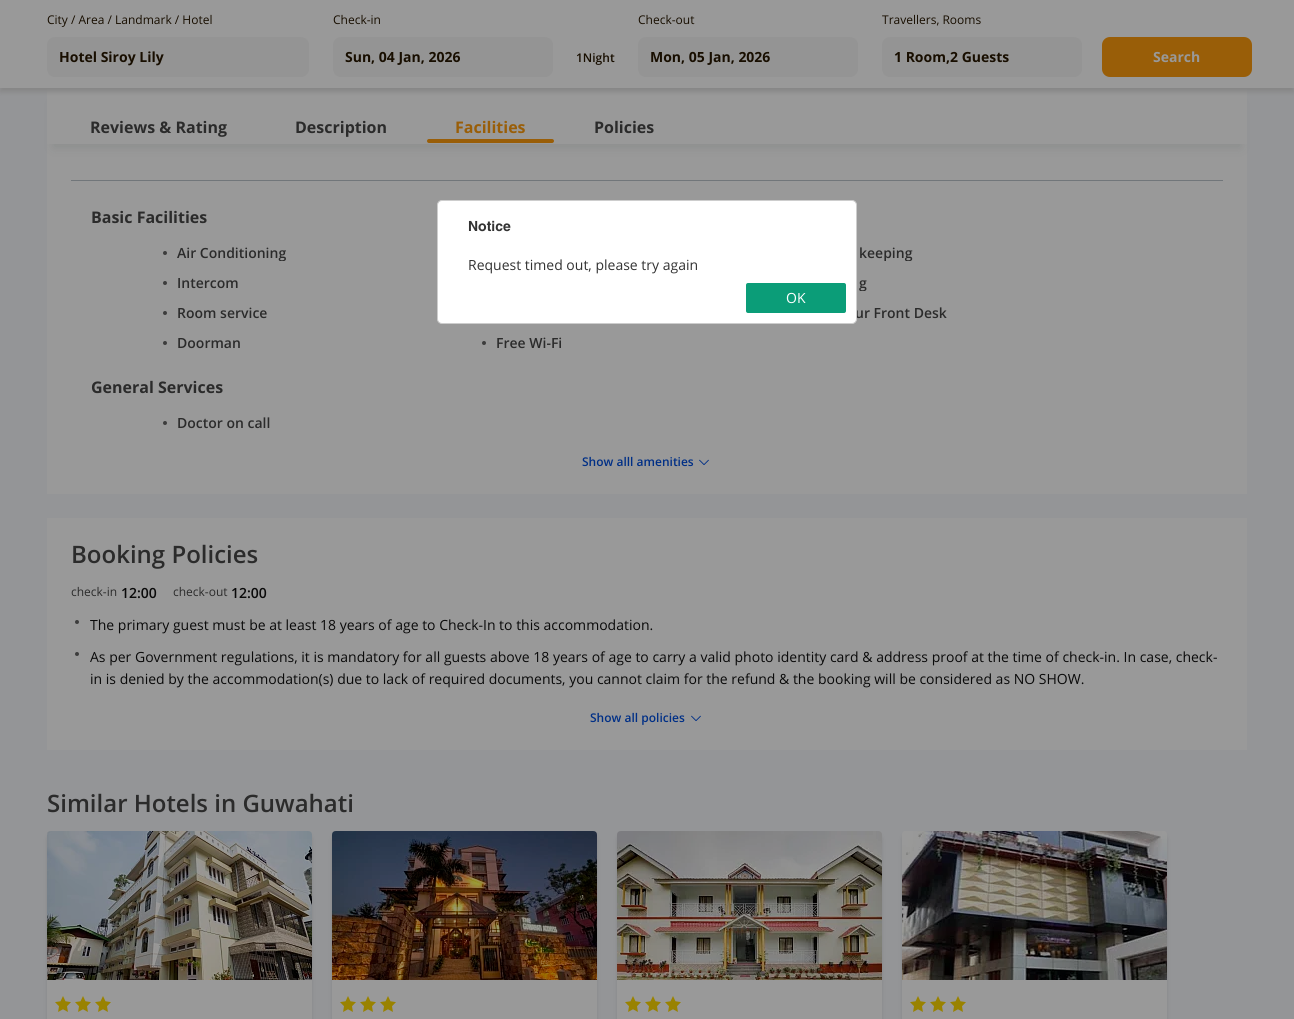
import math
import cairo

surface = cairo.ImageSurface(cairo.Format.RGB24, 1294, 1019)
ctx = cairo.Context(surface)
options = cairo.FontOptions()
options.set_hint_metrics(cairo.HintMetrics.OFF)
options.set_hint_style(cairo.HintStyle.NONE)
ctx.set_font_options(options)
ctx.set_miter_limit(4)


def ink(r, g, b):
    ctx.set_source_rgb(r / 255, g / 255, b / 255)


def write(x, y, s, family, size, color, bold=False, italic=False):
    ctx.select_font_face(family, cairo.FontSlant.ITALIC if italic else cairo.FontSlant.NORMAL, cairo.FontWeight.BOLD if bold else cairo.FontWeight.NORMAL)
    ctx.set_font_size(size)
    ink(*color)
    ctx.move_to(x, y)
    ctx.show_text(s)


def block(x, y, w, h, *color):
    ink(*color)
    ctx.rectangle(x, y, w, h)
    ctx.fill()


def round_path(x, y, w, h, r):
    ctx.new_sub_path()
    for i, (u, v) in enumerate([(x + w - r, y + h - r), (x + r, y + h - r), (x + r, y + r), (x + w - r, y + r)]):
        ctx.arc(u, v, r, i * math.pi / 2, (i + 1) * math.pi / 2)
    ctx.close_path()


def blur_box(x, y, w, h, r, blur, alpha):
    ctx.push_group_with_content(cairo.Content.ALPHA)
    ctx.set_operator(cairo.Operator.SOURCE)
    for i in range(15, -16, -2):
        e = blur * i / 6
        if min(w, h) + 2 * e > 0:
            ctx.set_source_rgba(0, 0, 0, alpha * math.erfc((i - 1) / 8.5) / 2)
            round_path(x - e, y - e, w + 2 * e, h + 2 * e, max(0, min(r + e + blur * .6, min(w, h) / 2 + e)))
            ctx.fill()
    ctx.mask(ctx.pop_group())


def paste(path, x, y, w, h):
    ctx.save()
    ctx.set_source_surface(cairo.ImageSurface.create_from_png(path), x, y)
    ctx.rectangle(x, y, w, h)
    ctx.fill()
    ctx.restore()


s1 = dict(family="Open Sans", size=12, color=(24, 14, 0))
s2 = dict(family="Open Sans", size=14, color=(24, 14, 0), bold=True)
s3 = dict(family="Open Sans SemiBold", size=12, color=(24, 14, 0))
s4 = dict(family="Open Sans", size=14, color=(153, 153, 153), bold=True)
s5 = dict(family="Open Sans", size=16, color=(43, 43, 43), bold=True)
s6 = dict(family="Open Sans", size=16, color=(153, 94, 8), bold=True)
s7 = dict(family="Open Sans SemiBold", size=14, color=(43, 43, 43))
s8 = dict(family="Open Sans SemiBold", size=12, color=(0, 47, 134))
s9 = dict(family="Open Sans SemiBold", size=24, color=(43, 43, 43))
s10 = dict(family="Open Sans", size=12, color=(43, 43, 43))
s11 = dict(family="Open Sans SemiBold", size=14, color=(10, 10, 10))
s12 = dict(family="Open Sans", size=14, color=(10, 10, 10))
s13 = dict(family="Helvetica", size=14, color=(51, 51, 51), bold=True)
s14 = dict(family="Open Sans", size=14, color=(51, 51, 51))
s15 = dict(family="Open Sans", size=14, color=(255, 255, 255))

ink(148, 149, 151)
ctx.paint()
block(47, 144, 1200, 350, 153, 153, 153)
ink(23, 40, 35)
blur_box(53, 104, 1188, 44, 0, 5, 0.1)
block(47, 88, 1200, 56, 153, 153, 153)
ink(134, 134, 134)
blur_box(0, 4, 1294, 88, 0, 2.5, 1)
block(0, 0, 1294, 88, 153, 153, 153)
write(47, 24, "City / Area / Landmark / Hotel", **s1)
ink(148, 148, 148)
round_path(47, 37, 262, 40, 8)
ctx.fill()
write(59, 62, "Hotel Siroy Lily", **s2)
write(333, 24, "Check-in", **s1)
ink(148, 148, 148)
round_path(333, 37, 220, 40, 8)
ctx.fill()
write(345, 62, "Sun, 04 Jan, 2026", **s2)
write(576, 62, "1Night", **s3)
write(638, 24, "Check-out", **s1)
ink(148, 148, 148)
round_path(638, 37, 220, 40, 8)
ctx.fill()
write(650, 62, "Mon, 05 Jan, 2026", **s2)
write(882, 24, "Travellers, Rooms", **s1)
ink(148, 148, 148)
round_path(882, 37, 200, 40, 8)
ctx.fill()
write(894, 62, "1 Room,2 Guests", **s2)
ink(153, 94, 8)
round_path(1102, 37, 150, 40, 8)
ctx.fill()
write(1153, 62, "Search", **s4)
write(90, 133, "Reviews & Rating", **s5)
write(295, 133, "Description", **s5)
write(455, 133, "Facilities", **s6)
round_path(427, 139, 127, 4, 2)
ctx.fill()
write(594, 133, "Policies", **s5)
block(71, 180, 1152, 1, 113, 118, 122)
write(91, 223, "Basic Facilities", **s5)
ink(61, 61, 61)
ctx.new_path()
ctx.arc(165, 253, 2, 0, 2 * math.pi)
ctx.fill()
ctx.save()
ctx.rectangle(163, 245, 319, 16)
ctx.clip()
write(177, 258, "Air Conditioning", **s7)
ctx.restore()
ctx.save()
ctx.rectangle(802, 245, 319, 16)
ctx.clip()
write(859, 258, "keeping", **s7)
ctx.restore()
ctx.new_path()
ctx.arc(165, 283, 2, 0, 2 * math.pi)
ctx.fill()
write(177, 288, "Intercom", **s7)
ctx.save()
ctx.rectangle(802, 275, 319, 16)
ctx.clip()
write(859, 288, "g", **s7)
ctx.restore()
ink(61, 61, 61)
ctx.new_path()
ctx.arc(165, 313, 2, 0, 2 * math.pi)
ctx.fill()
write(177, 318, "Room service", **s7)
write(855, 318, "ur Front Desk", **s7)
ink(61, 61, 61)
ctx.new_path()
ctx.arc(165, 343, 2, 0, 2 * math.pi)
ctx.fill()
write(177, 348, "Doorman", **s7)
ink(61, 61, 61)
ctx.new_path()
ctx.arc(484, 343, 2, 0, 2 * math.pi)
ctx.fill()
write(496, 348, "Free Wi-Fi", **s7)
write(91, 393, "General Services", **s5)
ink(61, 61, 61)
ctx.new_path()
ctx.arc(165, 423, 2, 0, 2 * math.pi)
ctx.fill()
write(177, 428, "Doctor on call", **s7)
write(582, 466, "Show alll amenities", **s8)
paste("pic1.png", 699, 459, 10, 6)
block(47, 518, 1200, 232, 153, 153, 153)
write(71, 563, "Booking Policies", **s9)
write(71, 596, "check-in", **s10)
write(121, 598, "12:00", **s11)
write(173, 596, "check-out", **s10)
write(231, 598, "12:00", **s11)
ink(61, 61, 61)
ctx.new_path()
ctx.arc(77, 622, 2, 0, 2 * math.pi)
ctx.fill()
write(90, 630, "The primary guest must be at least 18 years of age to Check-In to this accommodation.", **s12)
ink(61, 61, 61)
ctx.new_path()
ctx.arc(77, 654, 2, 0, 2 * math.pi)
ctx.fill()
write(90, 662, "As per Government regulations, it is mandatory for all guests above 18 years of age to carry a valid photo identity card & address proof at the time of check-in. In case, check-", **s12)
write(90, 684, "in is denied by the accommodation(s) due to lack of required documents, you cannot claim for the refund & the booking will be considered as NO SHOW.", **s12)
write(590, 722, "Show all policies", **s8)
paste("pic1.png", 691, 715, 10, 6)
write(47, 812, "Similar Hotels in Guwahati", **s9)
ink(0, 0, 0)
blur_box(47, 835, 265, 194, 4, 2, 0.1)
ink(153, 153, 153)
round_path(47, 831, 265, 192, 4)
ctx.fill()
paste("pic2.png", 47, 831, 265, 149)
paste("pic3.png", 55, 996, 16, 16)
paste("pic3.png", 75, 996, 16, 16)
paste("pic3.png", 95, 996, 16, 16)
ink(0, 0, 0)
blur_box(332, 835, 265, 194, 4, 2, 0.1)
ink(153, 153, 153)
round_path(332, 831, 265, 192, 4)
ctx.fill()
paste("pic4.png", 332, 831, 265, 149)
paste("pic3.png", 340, 996, 16, 16)
paste("pic3.png", 360, 996, 16, 16)
paste("pic3.png", 380, 996, 16, 16)
ink(0, 0, 0)
blur_box(617, 835, 265, 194, 4, 2, 0.1)
ink(153, 153, 153)
round_path(617, 831, 265, 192, 4)
ctx.fill()
paste("pic5.png", 617, 831, 265, 149)
paste("pic3.png", 625, 996, 16, 16)
paste("pic3.png", 645, 996, 16, 16)
paste("pic3.png", 665, 996, 16, 16)
ink(0, 0, 0)
blur_box(902, 835, 265, 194, 4, 2, 0.1)
ink(153, 153, 153)
round_path(902, 831, 265, 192, 4)
ctx.fill()
paste("pic6.png", 902, 831, 265, 149)
paste("pic3.png", 910, 996, 16, 16)
paste("pic3.png", 930, 996, 16, 16)
paste("pic3.png", 950, 996, 16, 16)
ink(255, 255, 255)
round_path(437.5, 200.5, 419, 123, 4.5)
ctx.fill_preserve()
ink(205, 205, 205)
ctx.set_line_width(1)
ctx.stroke()
write(468, 231, "Notice", **s13)
write(468, 270, "Request timed out, please try again", **s14)
ink(11, 157, 120)
round_path(746, 283, 100, 30, 2)
ctx.fill()
write(786, 303, "OK", **s15)
surface.write_to_png("screenshot.png")
